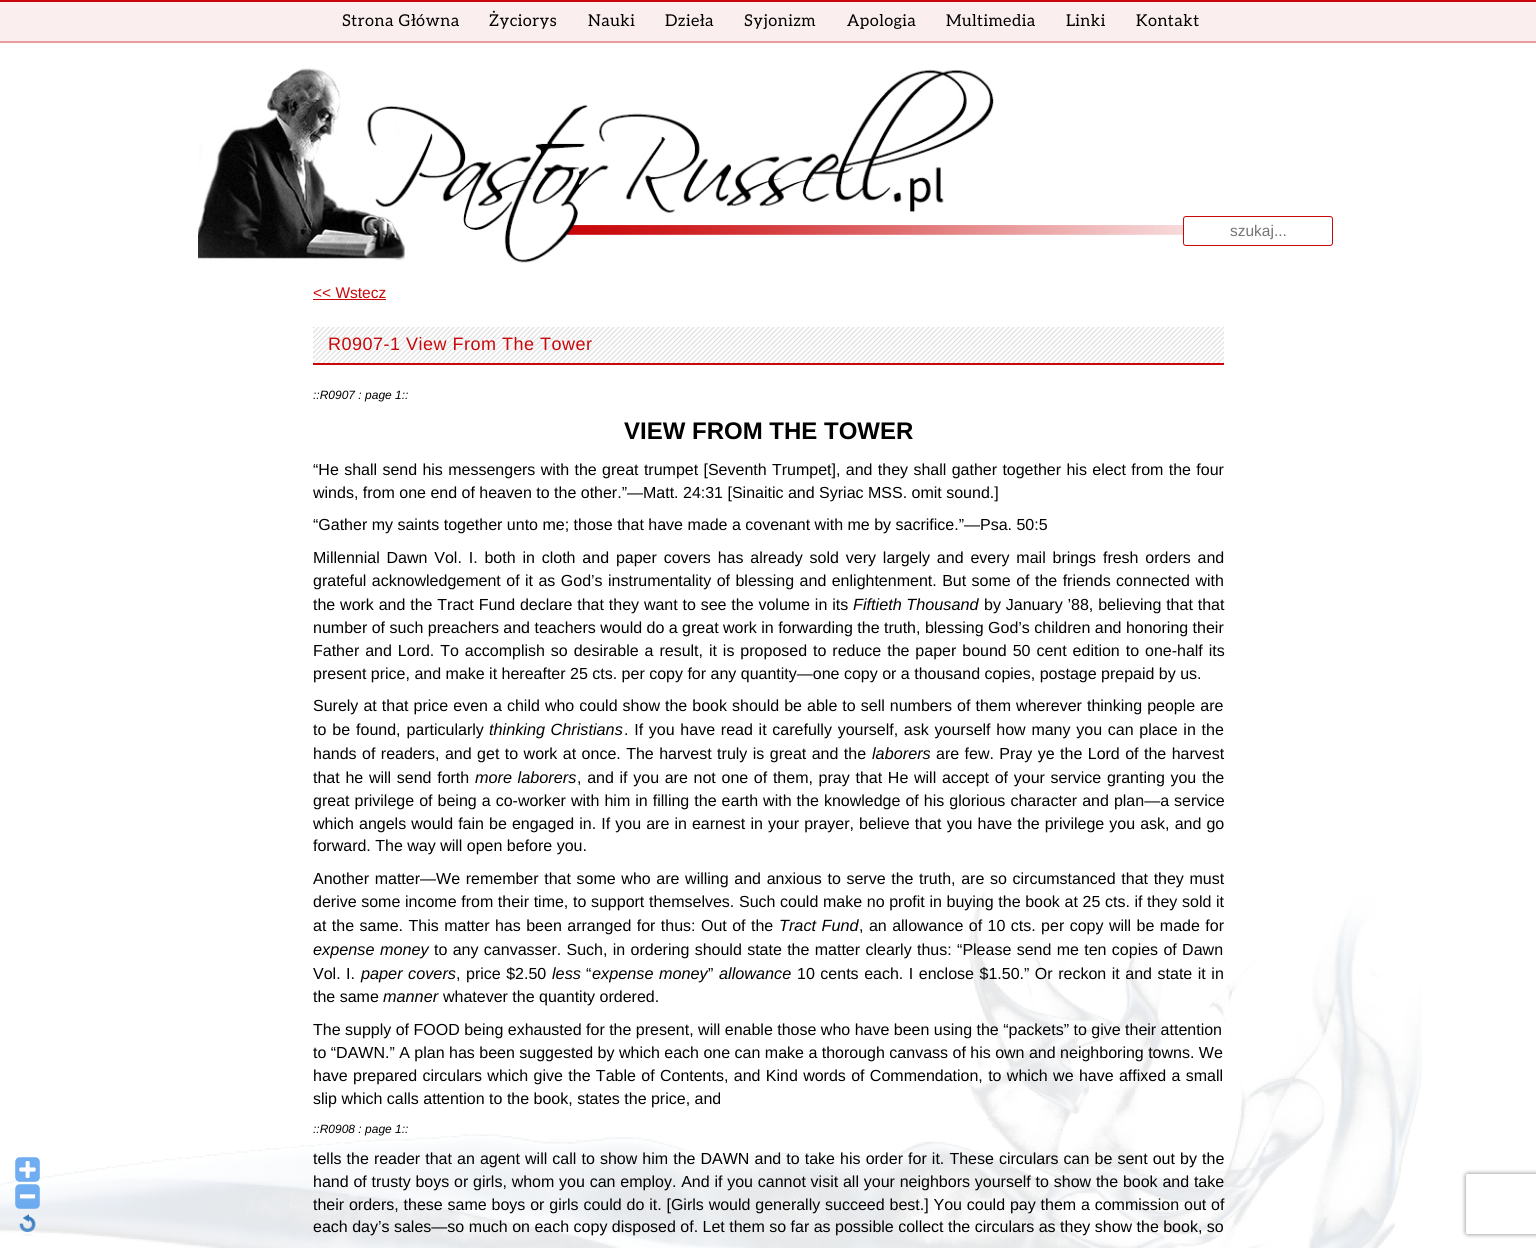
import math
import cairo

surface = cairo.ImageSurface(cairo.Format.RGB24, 1536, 1248)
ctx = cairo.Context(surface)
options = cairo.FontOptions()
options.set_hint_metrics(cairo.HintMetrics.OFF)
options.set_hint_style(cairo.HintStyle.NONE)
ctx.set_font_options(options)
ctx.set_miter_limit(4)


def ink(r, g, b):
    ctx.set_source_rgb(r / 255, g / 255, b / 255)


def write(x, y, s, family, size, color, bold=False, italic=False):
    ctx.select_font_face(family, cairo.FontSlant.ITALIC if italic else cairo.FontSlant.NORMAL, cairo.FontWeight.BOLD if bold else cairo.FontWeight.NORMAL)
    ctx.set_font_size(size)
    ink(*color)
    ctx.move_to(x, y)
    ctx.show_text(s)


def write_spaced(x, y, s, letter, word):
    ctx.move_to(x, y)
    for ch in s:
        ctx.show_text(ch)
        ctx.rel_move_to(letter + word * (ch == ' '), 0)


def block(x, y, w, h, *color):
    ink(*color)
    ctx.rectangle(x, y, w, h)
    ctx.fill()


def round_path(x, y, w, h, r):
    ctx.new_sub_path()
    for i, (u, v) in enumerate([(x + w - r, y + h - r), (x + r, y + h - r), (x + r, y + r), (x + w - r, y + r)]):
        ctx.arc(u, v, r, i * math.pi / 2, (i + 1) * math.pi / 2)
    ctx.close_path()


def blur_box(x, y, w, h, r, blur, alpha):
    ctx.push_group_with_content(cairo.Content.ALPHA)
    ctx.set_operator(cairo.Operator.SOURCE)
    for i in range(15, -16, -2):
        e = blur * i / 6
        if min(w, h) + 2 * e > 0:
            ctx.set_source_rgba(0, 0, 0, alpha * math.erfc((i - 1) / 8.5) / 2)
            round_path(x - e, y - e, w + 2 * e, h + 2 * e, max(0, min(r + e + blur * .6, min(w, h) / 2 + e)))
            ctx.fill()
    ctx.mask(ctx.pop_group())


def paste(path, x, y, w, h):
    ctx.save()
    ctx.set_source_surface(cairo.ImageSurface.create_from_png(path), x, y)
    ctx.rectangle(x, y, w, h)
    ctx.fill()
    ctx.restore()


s1 = dict(family="Liberation Sans", size=15.5, color=(117, 117, 117))
s2 = dict(family="Liberation Sans", size=15.5, color=(201, 6, 9))
s3 = dict(family="Liberation Sans", size=12, color=(0, 0, 0), italic=True)
s4 = dict(family="Liberation Sans", size=24, color=(0, 0, 0), bold=True)
s5 = dict(family="Liberation Sans", size=16, color=(0, 0, 0))
s6 = dict(family="Liberation Sans", size=16.25, color=(0, 0, 0), italic=True)

ink(255, 255, 255)
ctx.paint()
paste("pic1.png", 0, 886, 1422, 362)
block(0, 0, 1536, 2, 201, 6, 9)
block(0, 41, 1536, 2, 233, 155, 157)
block(0, 2, 1536, 39, 251, 238, 238)
ctx.select_font_face("Aleo")
ctx.set_font_size(16.25)
ink(0, 0, 0)
write_spaced(342, 26, "Strona Główna", 0.5, 0)
write_spaced(489, 26, "Życiorys", 0.5, 0)
write_spaced(588, 26, "Nauki", 0.5, 0)
write_spaced(665, 26, "Dzieła", 0.5, 0)
write_spaced(744, 26, "Syjonizm", 0.5, 0)
write_spaced(847, 26, "Apologia", 0.5, 0)
write_spaced(946, 26, "Multimedia", 0.5, 0)
write_spaced(1066, 26, "Linki", 0.5, 0)
write_spaced(1136, 26, "Kontakt", 0.5, 0)
paste("pic2.png", 198, 68, 1116, 195)
ink(255, 255, 255)
round_path(1183.5, 216.5, 149, 29, 2.5)
ctx.fill_preserve()
ink(201, 8, 11)
ctx.set_line_width(1)
ctx.stroke()
write(1230, 236, "szukaj...", **s1)
paste("pic3.png", 15, 1157, 25, 25)
paste("pic4.png", 15, 1184, 25, 25)
paste("pic5.png", 19, 1214, 17, 22)
write(313, 298, "<< Wstecz", **s2)
block(313, 299, 73, 1, 201, 6, 9)
block(313, 363, 911, 2, 201, 6, 9)
paste("pic6.png", 313, 327, 911, 36)
ctx.set_font_size(18)
write_spaced(328, 350, "R0907-1 View From The Tower", 0.5, 0)
write(313, 399, "::R0907 : page 1::", **s3)
write(624, 439, "VIEW FROM THE TOWER", **s4)
ctx.select_font_face("Liberation Sans")
ctx.set_font_size(16)
write_spaced(313, 475, "“He shall send his messengers with the great trumpet [Seventh Trumpet], and they shall gather together his elect from the four", 0, 0.9)
write(313, 498, "winds, from one end of heaven to the other.”—Matt. 24:31 [Sinaitic and Syriac MSS. omit sound.]", **s5)
write(313, 530, "“Gather my saints together unto me; those that have made a covenant with me by sacrifice.”—Psa. 50:5", **s5)
write_spaced(313, 563, "Millennial Dawn Vol. I. both in cloth and paper covers has already sold very largely and every mail brings fresh orders and", 0, 2.4)
write_spaced(313, 586, "grateful acknowledgement of it as God’s instrumentality of blessing and enlightenment. But some of the friends connected with", 0, 1)
write_spaced(313, 610, "the work and the Tract Fund declare that they want to see the volume in its", 0, 0.4)
write(853, 610, "Fiftieth Thousand", **s6)
ctx.select_font_face("Liberation Sans")
ctx.set_font_size(16)
write_spaced(984, 610, "by January ’88, believing that that", 0, 0.4)
write(313, 633, "number of such preachers and teachers would do a great work in forwarding the truth, blessing God’s children and honoring their", **s5)
write_spaced(313, 656, "Father and Lord. To accomplish so desirable a result, it is proposed to reduce the paper bound 50 cent edition to one-half its", 0, 1.5)
write(313, 679, "present price, and make it hereafter 25 cts. per copy for any quantity—one copy or a thousand copies, postage prepaid by us.", **s5)
write_spaced(313, 711, "Surely at that price even a child who could show the book should be able to sell numbers of them wherever thinking people are", 0, 0.6)
write_spaced(313, 735, "to be found, particularly", 0, 1.5)
ctx.select_font_face("Liberation Sans", cairo.FontSlant.ITALIC)
ctx.set_font_size(16.25)
write_spaced(489, 735, "thinking Christians", 0, 1)
ctx.select_font_face("Liberation Sans")
ctx.set_font_size(16)
write_spaced(624, 735, ". If you have read it carefully yourself, ask yourself how many you can place in the", 0, 1.3)
write_spaced(313, 759, "hands of readers, and get to work at once. The harvest truly is great and the", 0, 1)
write(872, 759, "laborers", **s6)
ctx.select_font_face("Liberation Sans")
ctx.set_font_size(16)
write_spaced(936, 759, "are few. Pray ye the Lord of the harvest", 0, 1)
write_spaced(313, 783, "that he will send forth", 0, 1.25)
ctx.select_font_face("Liberation Sans", cairo.FontSlant.ITALIC)
ctx.set_font_size(16.25)
write_spaced(475, 783, "more laborers", 0, 1)
ctx.select_font_face("Liberation Sans")
ctx.set_font_size(16)
write_spaced(577, 783, ", and if you are not one of them, pray that He will accept of your service granting you the", 0, 1.25)
write_spaced(313, 806, "great privilege of being a co-worker with him in filling the earth with the knowledge of his glorious character and plan—a service", 0, 0.6)
write_spaced(313, 829, "which angels would fain be engaged in. If you are in earnest in your prayer, believe that you have the privilege you ask, and go", 0, 0.65)
write(313, 851, "forward. The way will open before you.", **s5)
write_spaced(313, 884, "Another matter—We remember that some who are willing and anxious to serve the truth, are so circumstanced that they must", 0, 1.2)
write_spaced(313, 907, "derive some income from their time, to support themselves. Such could make no profit in buying the book at 25 cts. if they sold it", 0, 0.2)
write_spaced(313, 931, "at the same. This matter has been arranged for thus: Out of the", 0, 1)
ctx.select_font_face("Liberation Sans", cairo.FontSlant.ITALIC)
ctx.set_font_size(16.25)
write_spaced(779, 931, "Tract Fund", 0, 1)
ctx.select_font_face("Liberation Sans")
ctx.set_font_size(16)
write_spaced(859, 931, ", an allowance of 10 cts. per copy will be made for", 0, 1)
ctx.select_font_face("Liberation Sans", cairo.FontSlant.ITALIC)
ctx.set_font_size(16.25)
write_spaced(313, 955, "expense money", 0, 1)
ctx.select_font_face("Liberation Sans")
ctx.set_font_size(16)
write_spaced(434, 955, "to any canvasser. Such, in ordering should state the matter clearly thus: “Please send me ten copies of Dawn", 0, 0.9)
write_spaced(313, 979, "Vol. I.", 0, 1)
ctx.select_font_face("Liberation Sans", cairo.FontSlant.ITALIC)
ctx.set_font_size(16.25)
write_spaced(361, 979, "paper covers", 0, 1)
ctx.select_font_face("Liberation Sans")
ctx.set_font_size(16)
write_spaced(456, 979, ", price $2.50", 0, 1.1)
write(552, 979, "less", **s6)
write(586, 979, "“", **s5)
ctx.select_font_face("Liberation Sans", cairo.FontSlant.ITALIC)
ctx.set_font_size(16.25)
write_spaced(592, 979, "expense money", 0, 1)
write(708, 979, "”", **s5)
write(719, 979, "allowance", **s6)
ctx.select_font_face("Liberation Sans")
ctx.set_font_size(16)
write_spaced(797, 979, "10 cents each. I enclose $1.50.” Or reckon it and state it in", 0, 1.1)
write(313, 1002, "the same", **s5)
write(383, 1002, "manner", **s6)
write(443, 1002, "whatever the quantity ordered.", **s5)
write(313, 1035, "The supply of FOOD being exhausted for the present, will enable those who have been using the “packets” to give their attention", **s5)
write(313, 1058, "to “DAWN.” A plan has been suggested by which each one can make a thorough canvass of his own and neighboring towns. We", **s5)
write_spaced(313, 1081, "have prepared circulars which give the Table of Contents, and Kind words of Commendation, to which we have affixed a small", 0, 0.9)
write(313, 1104, "slip which calls attention to the book, states the price, and", **s5)
write(313, 1133, "::R0908 : page 1::", **s3)
ctx.select_font_face("Liberation Sans")
ctx.set_font_size(16)
write_spaced(313, 1164, "tells the reader that an agent will call to show him the DAWN and to take his order for it. These circulars can be sent out by the", 0, 0.65)
write_spaced(313, 1187, "hand of trusty boys or girls, whom you can employ. And if you cannot visit all your neighbors yourself to show the book and take", 0, 0.35)
write_spaced(313, 1210, "their orders, these same boys or girls could do it. [Girls would generally succeed best.] You could pay them a commission out of", 0, 0.4)
write(313, 1232, "each day’s sales—so much on each copy disposed of. Let them so far as possible collect the circulars as they show the book, so", **s5)
ctx.save()
ctx.set_fill_rule(cairo.FillRule.EVEN_ODD)
ctx.new_path()
ctx.move_to(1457, 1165)
ctx.line_to(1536, 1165)
ctx.line_to(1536, 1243)
ctx.line_to(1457, 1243)
ctx.close_path()
ctx.move_to(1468, 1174)
ctx.line_to(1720, 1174)
ctx.curve_to(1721, 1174, 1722, 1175, 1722, 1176)
ctx.line_to(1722, 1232)
ctx.curve_to(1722, 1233, 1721, 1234, 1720, 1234)
ctx.line_to(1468, 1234)
ctx.curve_to(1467, 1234, 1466, 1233, 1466, 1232)
ctx.line_to(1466, 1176)
ctx.curve_to(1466, 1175, 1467, 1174, 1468, 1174)
ctx.close_path()
ctx.clip()
ink(128, 128, 128)
blur_box(1466, 1174, 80, 60, 2, 2.5, 1)
ctx.restore()
surface.write_to_png("screenshot.png")
